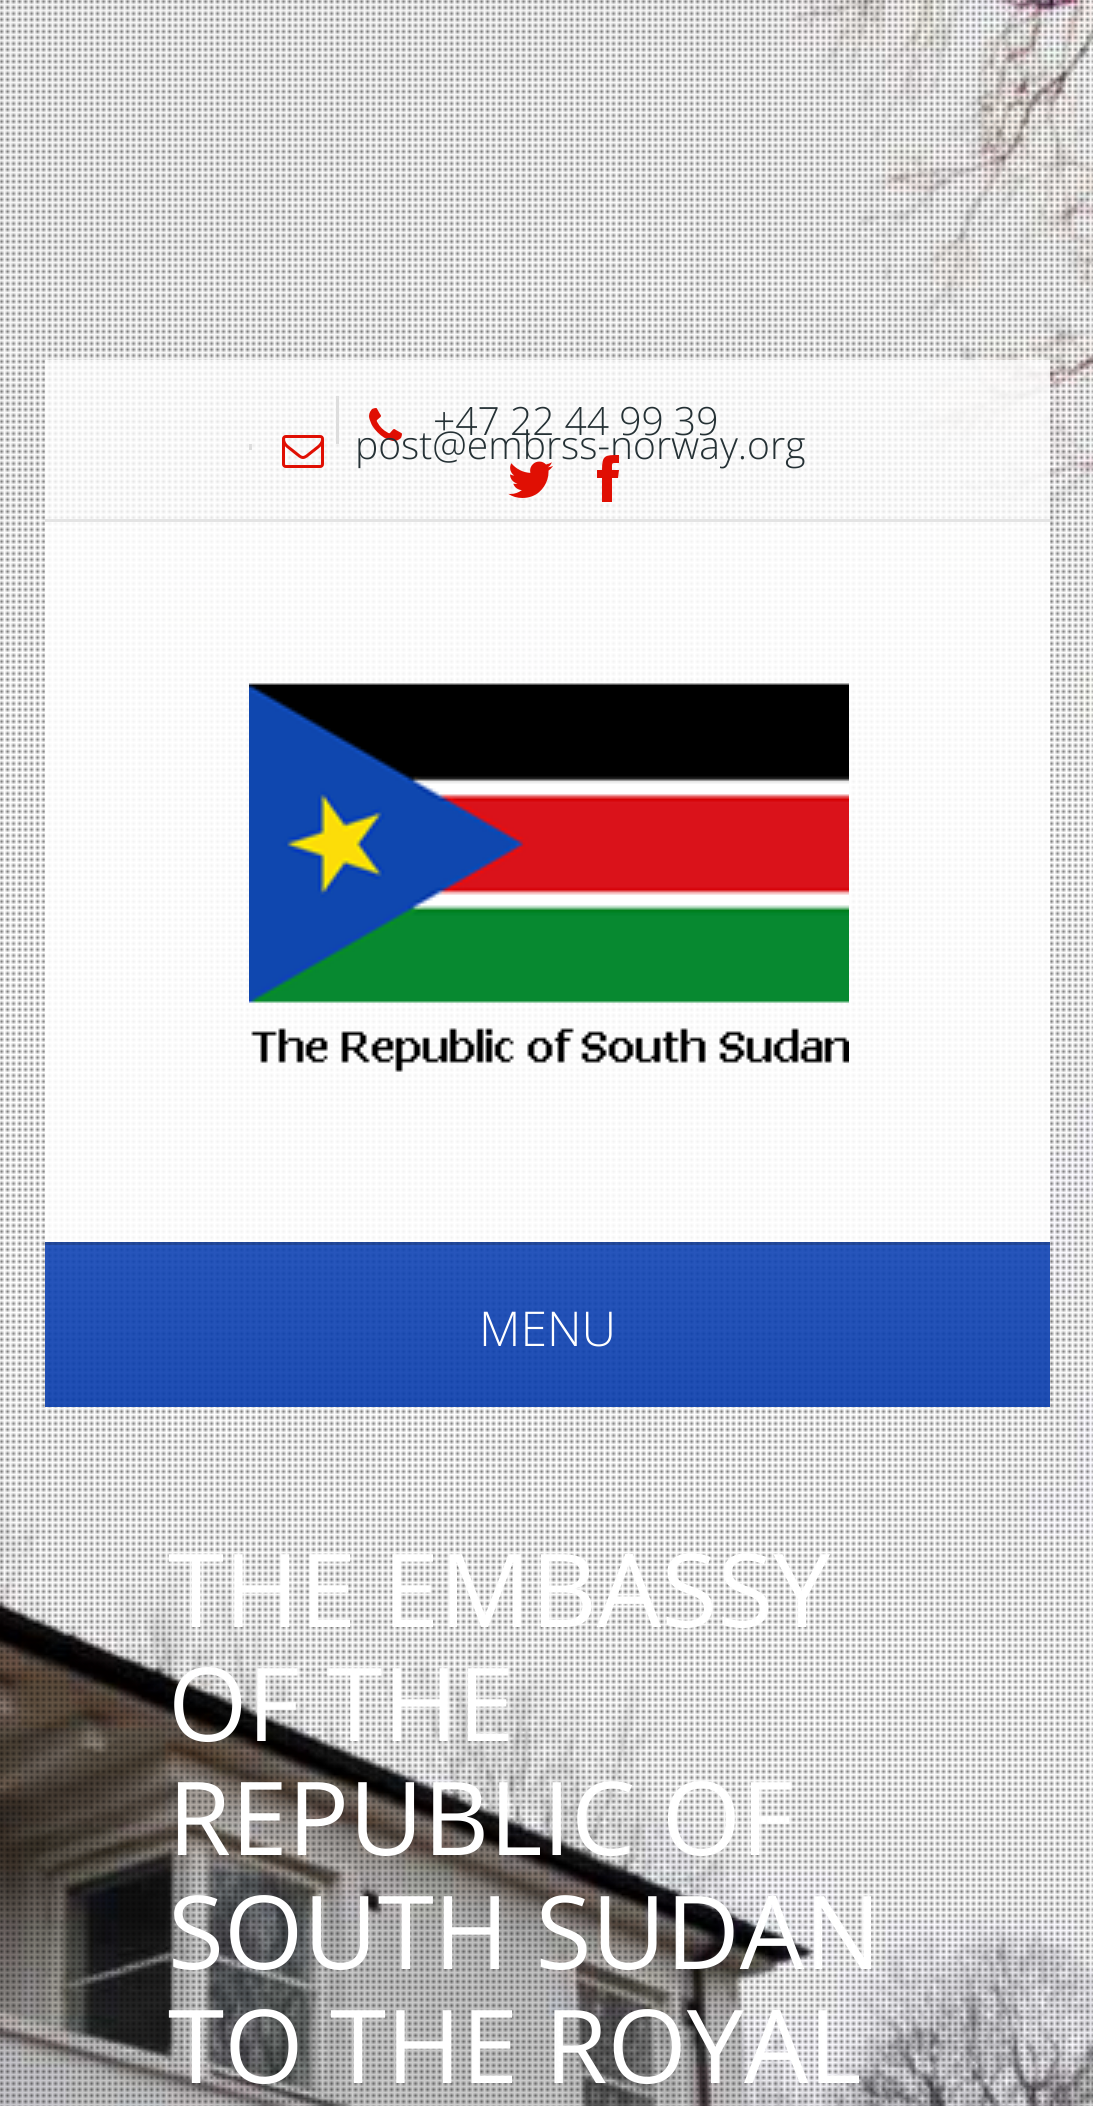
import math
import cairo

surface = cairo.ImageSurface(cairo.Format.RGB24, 1093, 2106)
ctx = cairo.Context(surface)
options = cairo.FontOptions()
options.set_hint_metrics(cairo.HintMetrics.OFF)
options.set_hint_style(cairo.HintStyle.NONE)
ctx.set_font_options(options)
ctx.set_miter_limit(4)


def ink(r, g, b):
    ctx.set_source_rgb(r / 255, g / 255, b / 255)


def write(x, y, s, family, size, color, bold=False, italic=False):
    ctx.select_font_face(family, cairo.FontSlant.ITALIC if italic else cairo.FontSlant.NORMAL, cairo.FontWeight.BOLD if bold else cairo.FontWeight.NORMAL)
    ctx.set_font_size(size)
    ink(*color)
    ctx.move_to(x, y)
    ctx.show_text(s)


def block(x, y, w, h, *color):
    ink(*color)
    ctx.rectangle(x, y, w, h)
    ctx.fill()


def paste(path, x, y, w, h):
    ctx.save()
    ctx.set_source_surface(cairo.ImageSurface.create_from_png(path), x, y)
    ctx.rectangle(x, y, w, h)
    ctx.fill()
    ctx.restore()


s1 = dict(family="Open Sans Light", size=39, color=(37, 49, 53))
s2 = dict(family="Open Sans Light", size=48, color=(255, 255, 255))
s3 = dict(family="Open Sans", size=102, color=(255, 255, 255))

ink(255, 255, 255)
ctx.paint()
paste("pic1.png", 0, 0, 1093, 2106)
paste("pic2.png", 0, 0, 1093, 2106)
ctx.set_source_rgba(1, 1, 1, 0.8)
ctx.rectangle(45, 360, 1005, 159)
ctx.fill()
block(45, 519, 1005, 3, 228, 228, 228)
block(336, 396, 3, 48, 221, 221, 221)
paste("pic3.png", 369, 408, 33, 33)
write(433, 435, "+47 22 44 99 39", **s1)
block(249, 444, 3, 6, 221, 221, 221)
paste("pic4.png", 282, 435, 42, 33)
write(355, 459, "post@embrss-norway.org", **s1)
paste("pic5.png", 508, 461, 45, 37)
ink(224, 15, 3)
ctx.new_path()
ctx.move_to(612, 470)
ctx.line_to(619, 470)
ctx.line_to(618, 478)
ctx.line_to(612, 478)
ctx.line_to(612, 502)
ctx.line_to(602, 502)
ctx.line_to(602, 478)
ctx.line_to(597, 478)
ctx.line_to(597, 470)
ctx.line_to(602, 470)
ctx.curve_to(602, 455, 605, 455, 619, 455)
ctx.line_to(619, 463)
ctx.curve_to(611, 463, 612, 462, 612, 470)
ctx.close_path()
ctx.fill()
ctx.set_source_rgba(1, 1, 1, 0.9)
ctx.rectangle(45, 522, 1005, 720)
ctx.fill()
paste("pic6.png", 249, 683, 600, 389)
ctx.set_source_rgba(0.039, 0.247, 0.702, 0.9)
ctx.rectangle(45, 1242, 1005, 165)
ctx.fill()
gradient = cairo.LinearGradient(548, 1245, 548, 1083)
gradient.add_color_stop_rgba(0, 0, 0, 0, 0.03)
gradient.add_color_stop_rgba(1, 1, 1, 1, 0.03)
ctx.set_source(gradient)
ctx.rectangle(45, 1242, 1005, 3)
ctx.fill()
gradient = cairo.LinearGradient(548, 1407, 548, 1245)
gradient.add_color_stop_rgba(0, 0, 0, 0, 0.03)
gradient.add_color_stop_rgba(1, 1, 1, 1, 0.03)
ctx.set_source(gradient)
ctx.rectangle(45, 1245, 1005, 162)
ctx.fill()
ctx.set_source_rgba(0.22, 0.22, 0.22, 0.2)
ctx.rectangle(45, 1242, 1005, 3)
ctx.fill()
write(479, 1346, "MENU", **s2)
write(168, 1627, "THE EMBASSY", **s3)
write(168, 1741, "OF THE", **s3)
write(168, 1855, "REPUBLIC OF", **s3)
write(168, 1969, "SOUTH SUDAN", **s3)
write(168, 2083, "TO THE ROYAL", **s3)
surface.write_to_png("screenshot.png")
